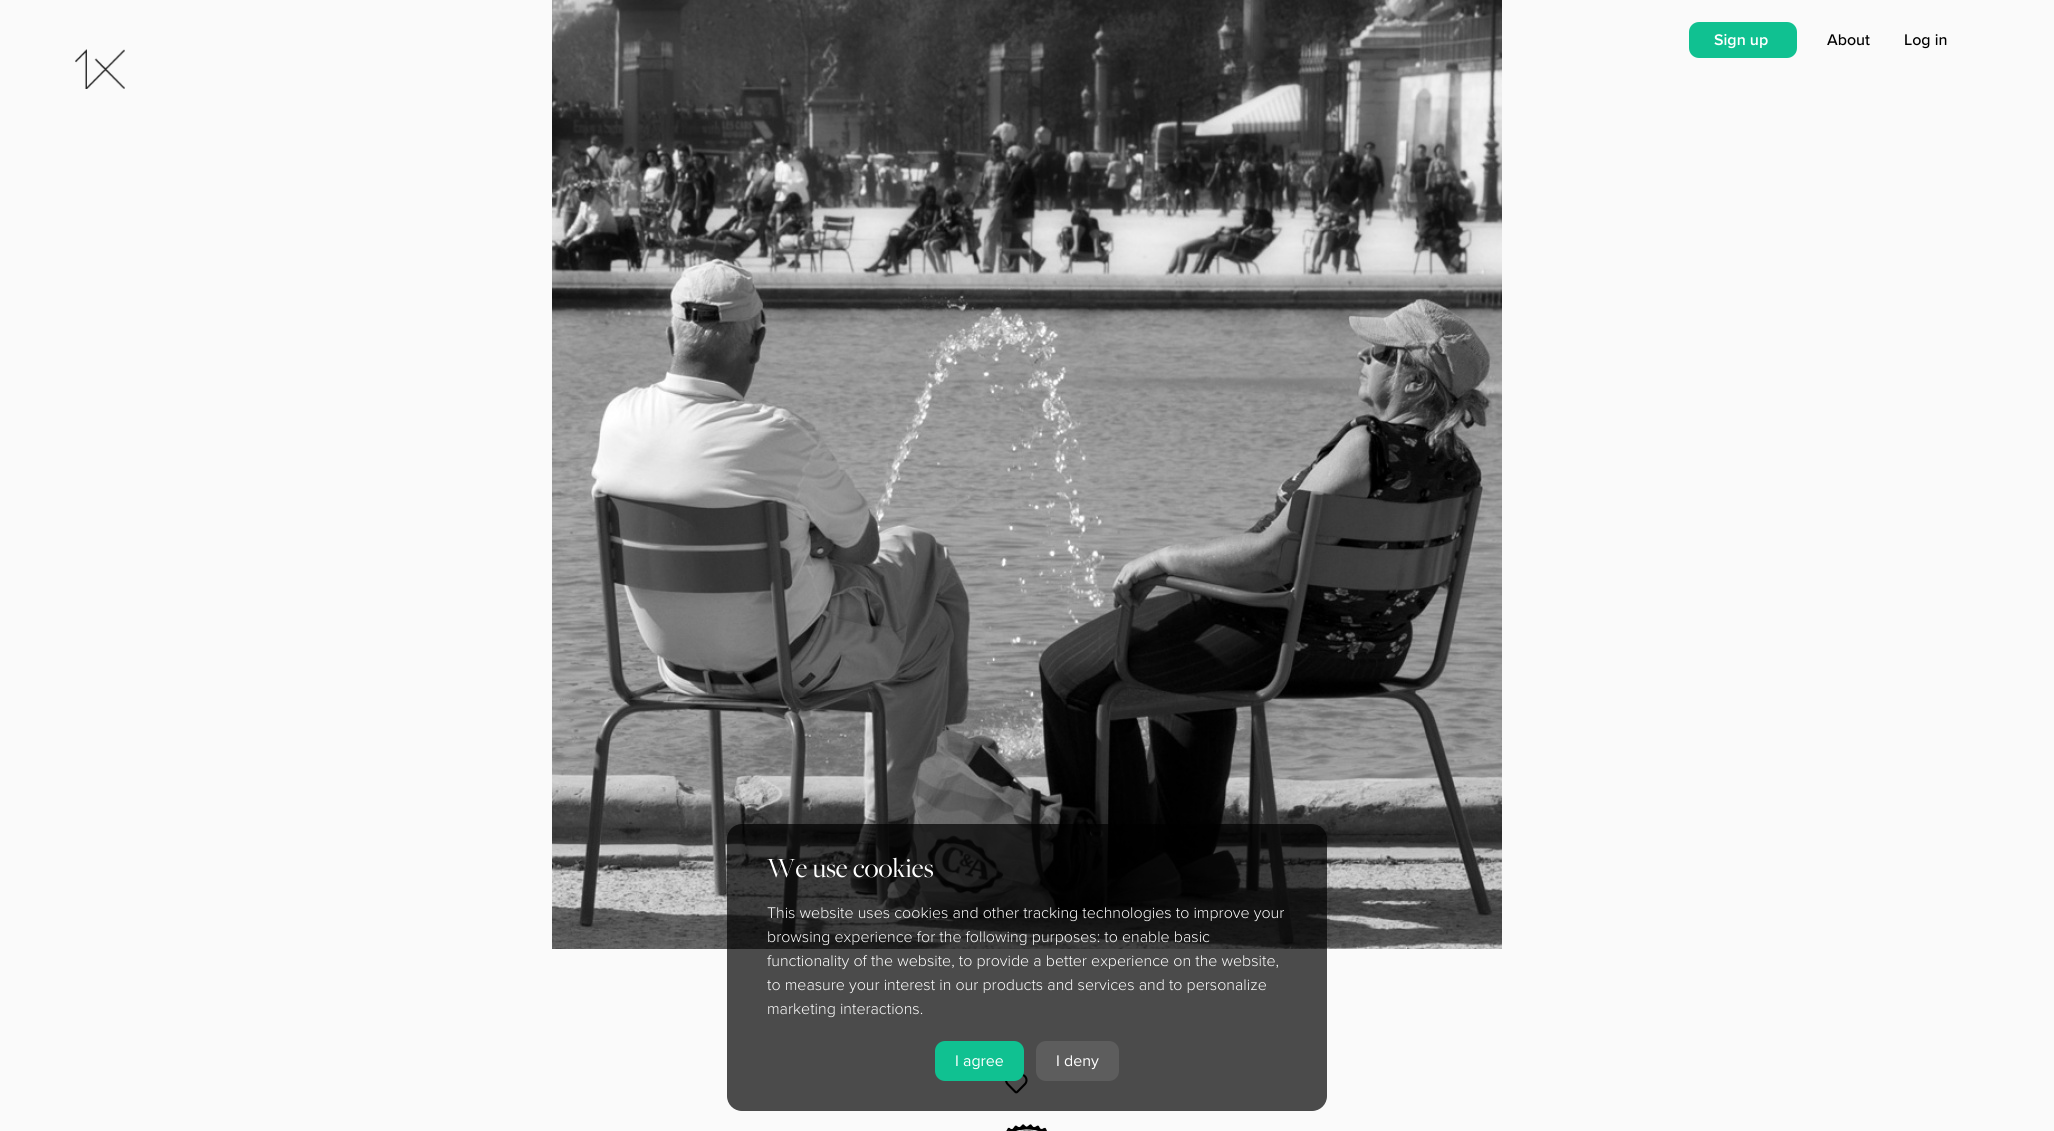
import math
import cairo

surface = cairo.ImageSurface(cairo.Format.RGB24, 2054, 1131)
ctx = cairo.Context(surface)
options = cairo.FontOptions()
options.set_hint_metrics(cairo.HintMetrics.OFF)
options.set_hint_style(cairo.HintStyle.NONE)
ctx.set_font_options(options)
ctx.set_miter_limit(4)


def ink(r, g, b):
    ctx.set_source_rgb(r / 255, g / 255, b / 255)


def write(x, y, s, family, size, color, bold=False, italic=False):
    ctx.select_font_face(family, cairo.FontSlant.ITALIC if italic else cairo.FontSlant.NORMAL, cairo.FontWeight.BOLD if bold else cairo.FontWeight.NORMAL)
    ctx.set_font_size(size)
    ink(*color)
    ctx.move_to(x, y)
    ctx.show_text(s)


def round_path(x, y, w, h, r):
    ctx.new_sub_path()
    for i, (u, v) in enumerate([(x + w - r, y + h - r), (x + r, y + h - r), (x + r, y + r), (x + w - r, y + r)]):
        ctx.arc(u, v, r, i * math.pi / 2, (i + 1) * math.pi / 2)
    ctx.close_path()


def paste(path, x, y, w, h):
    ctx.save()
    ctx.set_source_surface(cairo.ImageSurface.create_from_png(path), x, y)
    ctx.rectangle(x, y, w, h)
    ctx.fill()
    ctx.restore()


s1 = dict(family="Proxima Nova SemiBold", size=16, color=(255, 255, 255))
s2 = dict(family="Proxima Nova Medium", size=16, color=(0, 0, 0))
s3 = dict(family="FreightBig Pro", size=28.75, color=(255, 255, 255))
s4 = dict(family="Proxima Nova Light", size=16, color=(255, 255, 255))
s5 = dict(family="Proxima Nova", size=16, color=(255, 255, 255))

ink(250, 250, 250)
ctx.paint()
paste("pic1.png", 552, 0, 950, 949)
paste("pic2.png", 1005, 1074, 23, 20)
paste("pic3.png", 1006, 1124, 41, 7)
ink(16, 193, 145)
round_path(1689, 22, 108, 36, 10)
ctx.fill()
write(1714, 45, "Sign up", **s1)
write(1827, 45, "About", **s2)
write(1904, 45, "Log in", **s2)
paste("pic4.png", 75, 49, 50, 40)
ctx.set_source_rgba(0, 0, 0, 0.7)
round_path(727, 824, 600, 287, 15)
ctx.fill()
write(767, 877, "We use cookies", **s3)
write(767, 918, "This website uses cookies and other tracking technologies to improve your", **s4)
write(767, 942, "browsing experience for the following purposes: to enable basic", **s4)
write(767, 966, "functionality of the website, to provide a better experience on the website,", **s4)
write(767, 990, "to measure your interest in our products and services and to personalize", **s4)
write(767, 1014, "marketing interactions.", **s4)
ink(16, 193, 145)
round_path(935, 1041, 89, 40, 10)
ctx.fill()
write(955, 1066, "I agree", **s5)
ctx.set_source_rgba(1, 1, 1, 0.1)
round_path(1036, 1041, 83, 40, 10)
ctx.fill()
write(1056, 1066, "I deny", **s5)
surface.write_to_png("screenshot.png")
